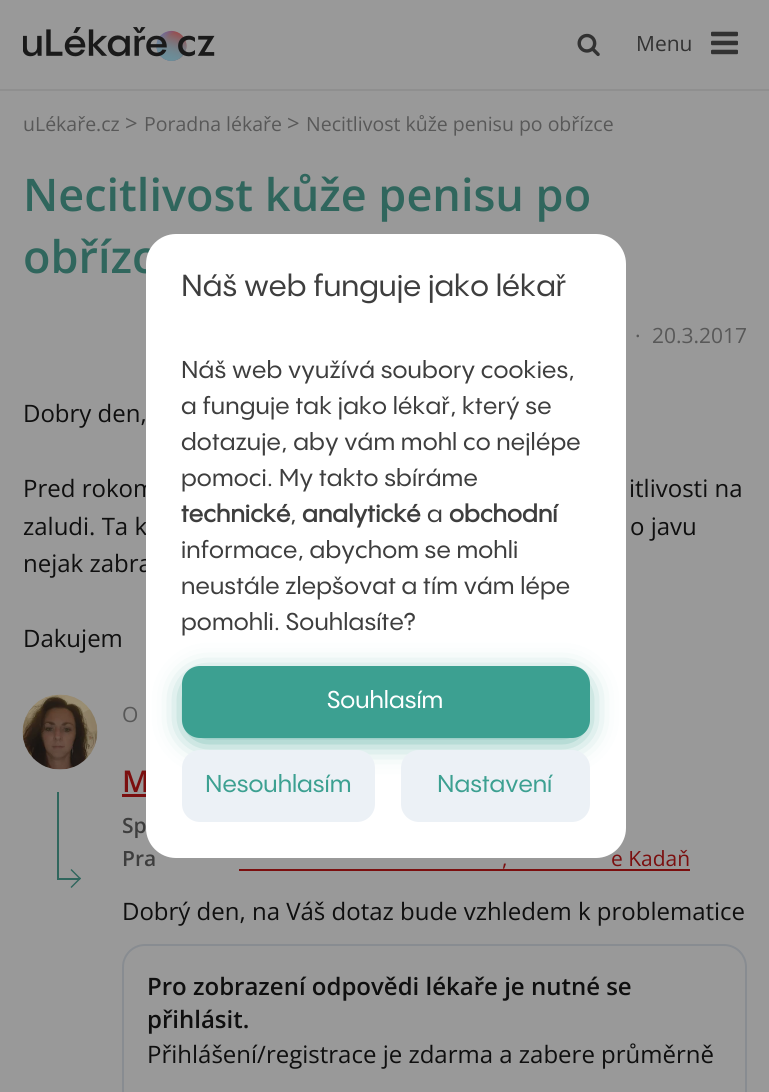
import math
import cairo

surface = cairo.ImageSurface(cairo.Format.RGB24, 769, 1092)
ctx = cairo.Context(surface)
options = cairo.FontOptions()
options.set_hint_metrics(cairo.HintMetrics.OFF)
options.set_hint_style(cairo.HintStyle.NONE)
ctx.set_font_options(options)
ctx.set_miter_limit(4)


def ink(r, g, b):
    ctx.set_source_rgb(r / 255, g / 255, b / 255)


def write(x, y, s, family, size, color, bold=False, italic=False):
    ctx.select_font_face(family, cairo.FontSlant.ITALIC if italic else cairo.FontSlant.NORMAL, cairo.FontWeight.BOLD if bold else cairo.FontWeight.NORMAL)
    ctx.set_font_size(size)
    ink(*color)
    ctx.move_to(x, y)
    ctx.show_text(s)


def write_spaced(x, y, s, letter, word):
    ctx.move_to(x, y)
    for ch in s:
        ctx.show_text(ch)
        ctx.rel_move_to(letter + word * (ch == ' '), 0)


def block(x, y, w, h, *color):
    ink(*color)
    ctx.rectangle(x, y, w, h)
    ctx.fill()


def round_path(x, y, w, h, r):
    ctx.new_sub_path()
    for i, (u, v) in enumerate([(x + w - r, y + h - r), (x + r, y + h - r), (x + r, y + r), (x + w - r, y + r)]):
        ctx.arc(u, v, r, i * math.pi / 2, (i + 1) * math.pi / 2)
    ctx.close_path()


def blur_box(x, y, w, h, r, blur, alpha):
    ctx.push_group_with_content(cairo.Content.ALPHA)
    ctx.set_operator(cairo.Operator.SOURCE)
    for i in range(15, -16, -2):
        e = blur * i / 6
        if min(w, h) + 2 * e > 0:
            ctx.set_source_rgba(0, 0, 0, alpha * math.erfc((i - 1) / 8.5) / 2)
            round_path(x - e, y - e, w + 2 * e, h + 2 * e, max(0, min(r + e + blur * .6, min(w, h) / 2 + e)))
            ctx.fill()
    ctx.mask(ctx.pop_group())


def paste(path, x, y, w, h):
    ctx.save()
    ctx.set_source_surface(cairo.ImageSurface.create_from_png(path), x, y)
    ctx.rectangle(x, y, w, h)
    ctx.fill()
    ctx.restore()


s1 = dict(family="Open Sans", size=21, color=(50, 50, 50))
s2 = dict(family="Open Sans", size=19.5, color=(88, 88, 88))
s3 = dict(family="Open Sans", size=22, color=(88, 88, 88))
s4 = dict(family="Open Sans SemiBold", size=45, color=(48, 102, 93))
s5 = dict(family="Open Sans", size=21, color=(88, 88, 88))
s6 = dict(family="Open Sans", size=24, color=(15, 15, 15))
s7 = dict(family="Open Sans SemiBold", size=30, color=(123, 15, 15))
s8 = dict(family="Open Sans SemiBold", size=21, color=(62, 62, 62))
s9 = dict(family="Open Sans", size=21, color=(123, 15, 15))
s10 = dict(family="Open Sans SemiBold", size=24, color=(15, 15, 15))
s11 = dict(family="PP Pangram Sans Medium", size=30, color=(62, 62, 62))
s12 = dict(family="PP Pangram Sans Medium", size=24, color=(255, 255, 255))
s13 = dict(family="PP Pangram Sans Medium", size=24, color=(60, 160, 145))

ink(153, 153, 153)
ctx.paint()
block(0, 89, 769, 2, 143, 143, 143)
paste("pic1.png", 23, 27, 192, 34)
paste("pic2.png", 577, 33, 23, 24)
write(636, 51, "Menu", **s1)
paste("pic3.png", 711, 31, 27, 24)
write(23, 131, "uLékaře.cz", **s2)
write(125, 131, ">", **s3)
write(144, 131, "Poradna lékaře", **s2)
write(287, 131, ">", **s3)
write(306, 131, "Necitlivost kůže penisu po obřízce", **s2)
write(23, 211, "Necitlivost kůže penisu po", **s4)
write(23, 273, "obřízc", **s4)
write(635, 337, ".", **s5)
write(652, 343, "20.3.2017", **s5)
write(23, 422, "Dobry den,", **s6)
write(23, 497, "Pred rokom", **s6)
write(629, 497, "itlivosti na", **s6)
write(23, 535, "zaludi. Ta k", **s6)
write(630, 535, "o javu", **s6)
write(23, 572, "nejak zabra", **s6)
write(23, 647, "Dakujem", **s6)
paste("pic4.png", 22, 694, 76, 76)
write(122, 722, "O", **s5)
write(122, 792, "M", **s7)
block(122, 794, 24, 3, 123, 15, 15)
block(57, 878, 23, 2, 48, 102, 93)
block(57, 792, 2, 87, 48, 102, 93)
ctx.new_path()
ctx.move_to(71.5, 869)
ctx.line_to(81, 878.5)
ctx.line_to(80, 879.5)
ctx.line_to(70.5, 870)
ctx.close_path()
ctx.fill()
ctx.new_path()
ctx.move_to(80, 877.5)
ctx.line_to(81, 878.5)
ctx.line_to(71.5, 888)
ctx.line_to(70.5, 887)
ctx.close_path()
ctx.fill()
write(122, 833, "Sp", **s8)
write(122, 866, "Pra", **s8)
write(502, 866, ",", **s9)
block(239, 869, 451, 2, 123, 15, 15)
write(611, 866, "e Kadaň", **s9)
write(122, 920, "Dobrý den, na Váš dotaz bude vzhledem k problematice", **s6)
round_path(123, 945, 623, 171, 22)
ink(136, 140, 145)
ctx.stroke()
write(147, 995, "Pro zobrazení odpovědi lékaře je nutné se", **s10)
write(147, 1028, "přihlásit.", **s10)
write(147, 1063, "Přihlášení/registrace je zdarma a zabere průměrně", **s6)
ink(255, 255, 255)
round_path(146, 234, 480, 624, 30)
ctx.fill()
write(181, 296, "Náš web funguje jako lékař", **s11)
ctx.set_font_size(24)
write_spaced(181, 378, "Náš web využívá soubory cookies,", 0.15, 0)
write_spaced(181, 414, "a funguje tak jako lékař, který se", 0.15, 0)
write_spaced(181, 450, "dotazuje, aby vám mohl co nejlépe", 0.15, 0)
write_spaced(181, 486, "pomoci. My takto sbíráme", 0.15, 0)
ctx.select_font_face("PP Pangram Sans", cairo.FontSlant.NORMAL, cairo.FontWeight.BOLD)
write_spaced(181, 522, "technické", 0.15, 0)
ctx.select_font_face("PP Pangram Sans Medium")
write_spaced(290, 522, ",", 0.15, 0)
ctx.select_font_face("PP Pangram Sans", cairo.FontSlant.NORMAL, cairo.FontWeight.BOLD)
write_spaced(302, 522, "analytické", 0.15, 0)
ctx.select_font_face("PP Pangram Sans Medium")
write_spaced(427, 522, "a", 0.15, 0)
ctx.select_font_face("PP Pangram Sans", cairo.FontSlant.NORMAL, cairo.FontWeight.BOLD)
write_spaced(449, 522, "obchodní", 0.15, 0)
ctx.select_font_face("PP Pangram Sans Medium")
write_spaced(181, 558, "informace, abychom se mohli", 0.15, 0)
write_spaced(181, 594, "neustále zlepšovat a tím vám lépe", 0.15, 0)
write_spaced(181, 630, "pomohli. Souhlasíte?", 0.15, 0)
ink(60, 160, 145)
blur_box(189, 680, 393, 57, 11, 15, 1)
ink(60, 160, 145)
round_path(182, 666, 408, 72, 18)
ctx.fill()
write(327, 708, "Souhlasím", **s12)
ink(236, 241, 246)
round_path(182, 750, 193, 72, 18)
ctx.fill()
write(205, 792, "Nesouhlasím", **s13)
ink(236, 241, 246)
round_path(401, 750, 189, 72, 18)
ctx.fill()
write(437, 792, "Nastavení", **s13)
surface.write_to_png("screenshot.png")
